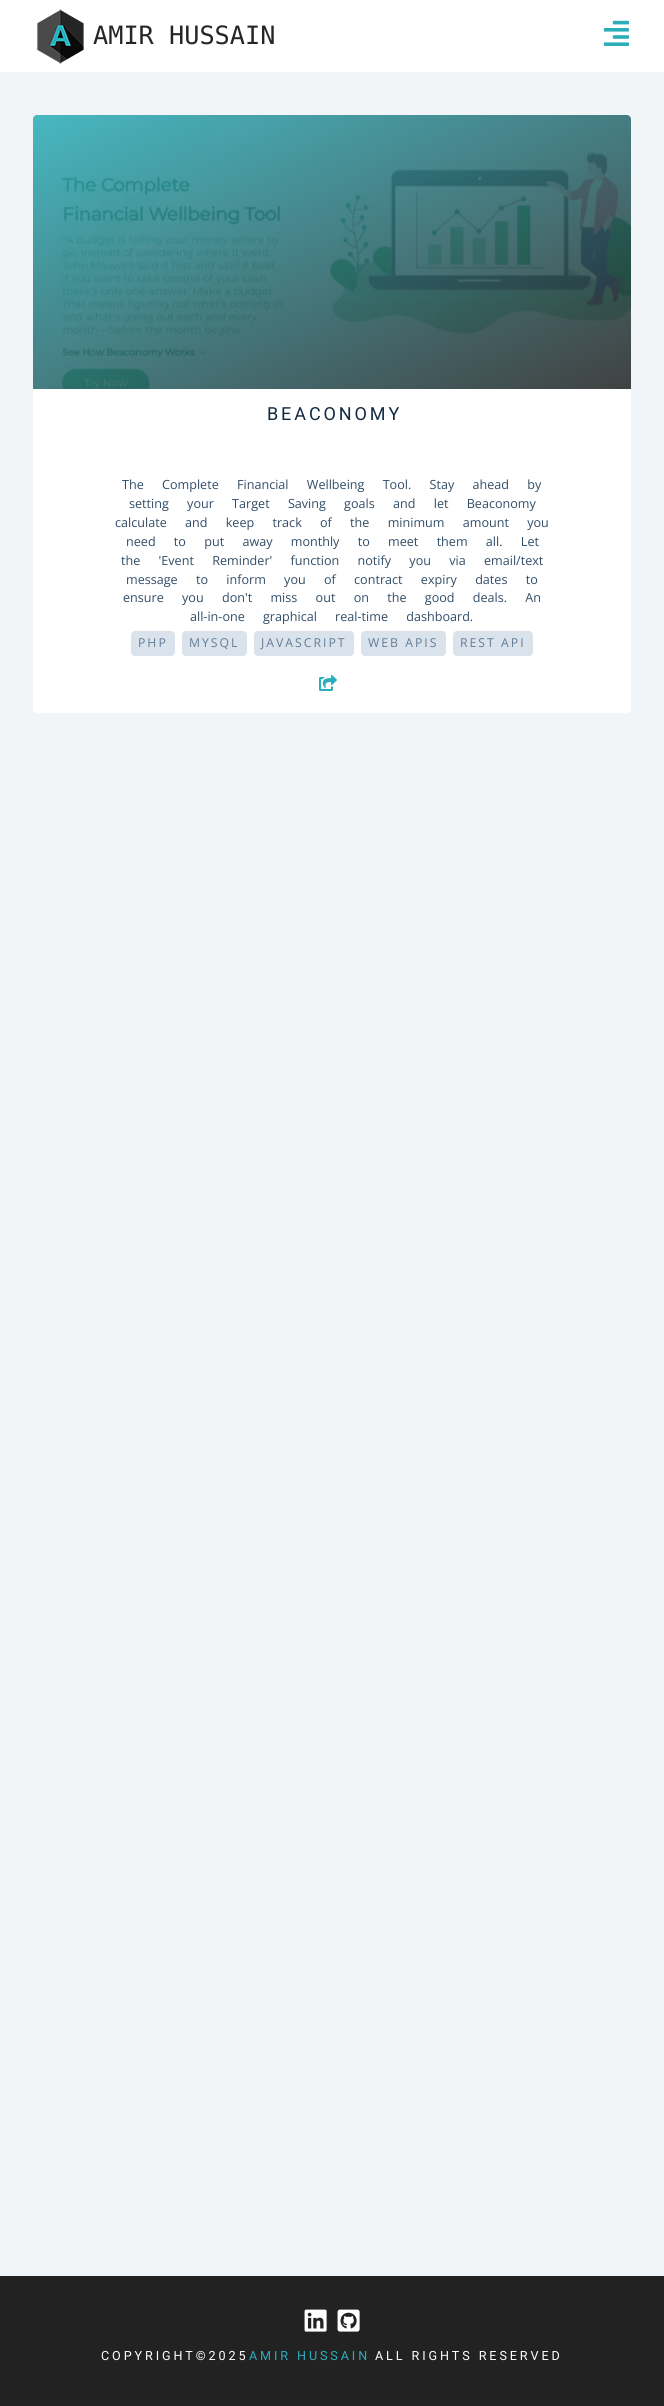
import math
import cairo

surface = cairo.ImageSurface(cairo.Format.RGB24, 664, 2406)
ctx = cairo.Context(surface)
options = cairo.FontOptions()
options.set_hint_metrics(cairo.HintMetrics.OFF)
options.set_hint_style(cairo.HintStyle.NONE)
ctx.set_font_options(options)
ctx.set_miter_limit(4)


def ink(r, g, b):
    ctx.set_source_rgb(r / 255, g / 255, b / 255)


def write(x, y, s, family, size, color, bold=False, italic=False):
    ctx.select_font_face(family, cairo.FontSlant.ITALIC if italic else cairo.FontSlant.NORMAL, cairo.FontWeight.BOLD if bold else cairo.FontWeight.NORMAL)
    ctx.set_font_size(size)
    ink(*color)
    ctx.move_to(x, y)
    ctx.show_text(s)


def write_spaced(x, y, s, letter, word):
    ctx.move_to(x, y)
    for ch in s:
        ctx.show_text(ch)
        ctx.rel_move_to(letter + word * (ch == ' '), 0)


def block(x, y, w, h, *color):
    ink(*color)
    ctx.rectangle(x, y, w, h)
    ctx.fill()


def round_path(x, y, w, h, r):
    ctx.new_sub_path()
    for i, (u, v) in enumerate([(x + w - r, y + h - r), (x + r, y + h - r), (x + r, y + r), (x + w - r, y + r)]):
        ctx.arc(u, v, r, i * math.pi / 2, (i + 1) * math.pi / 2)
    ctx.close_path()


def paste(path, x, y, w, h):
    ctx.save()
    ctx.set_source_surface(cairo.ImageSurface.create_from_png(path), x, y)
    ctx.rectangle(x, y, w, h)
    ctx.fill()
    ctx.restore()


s1 = dict(family="DejaVu Sans Mono", size=25.25, color=(37, 37, 37))

ink(255, 255, 255)
ctx.paint()
paste("pic1.png", 37, 9, 47, 55)
write(93, 44, "AMIR HUSSAIN", **s1)
paste("pic2.png", 603, 20, 26, 26)
block(0, 72, 664, 2204, 241, 245, 248)
paste("pic3.png", 33, 115, 598, 274)
gradient = cairo.LinearGradient(228, 26, 436, 478)
gradient.add_color_stop_rgba(0, 0.173, 0.682, 0.729, 0.85)
gradient.add_color_stop_rgba(1, 0.133, 0.133, 0.133, 0.85)
ctx.set_source(gradient)
ctx.new_path()
ctx.move_to(37, 115)
ctx.line_to(627, 115)
ctx.curve_to(629, 115, 631, 117, 631, 119)
ctx.line_to(631, 389)
ctx.line_to(33, 389)
ctx.line_to(33, 119)
ctx.curve_to(33, 117, 35, 115, 37, 115)
ctx.close_path()
ctx.fill()
ink(255, 255, 255)
ctx.new_path()
ctx.move_to(33, 389)
ctx.line_to(631, 389)
ctx.line_to(631, 709)
ctx.curve_to(631, 711, 629, 713, 627, 713)
ctx.line_to(37, 713)
ctx.curve_to(35, 713, 33, 711, 33, 709)
ctx.close_path()
ctx.fill()
ctx.select_font_face("Roboto")
ctx.set_font_size(18)
ink(16, 42, 66)
write_spaced(267, 420, "BEACONOMY", 2.9, 0)
ctx.select_font_face("Open Sans")
ctx.set_font_size(12.6)
ink(50, 77, 103)
write_spaced(122, 489, "The Complete Financial Wellbeing Tool. Stay ahead by", 0, 15)
write_spaced(129, 508, "setting your Target Saving goals and let Beaconomy", 0, 15)
write_spaced(115, 527, "calculate and keep track of the minimum amount you", 0, 15)
write_spaced(126, 546, "need to put away monthly to meet them all. Let", 0, 15)
write_spaced(121, 565, "the 'Event Reminder' function notify you via email/text", 0, 15)
write_spaced(126, 584, "message to inform you of contract expiry dates to", 0, 15)
write_spaced(123, 602, "ensure you don't miss out on the good deals. An", 0, 15)
write_spaced(190, 621, "all-in-one graphical real-time dashboard.", 0, 15)
ink(218, 226, 236)
round_path(131, 631, 44, 25, 4)
ctx.fill()
ctx.set_font_size(12.25)
ink(97, 125, 152)
write_spaced(138, 647, "PHP", 2, 0)
ink(218, 226, 236)
round_path(182, 631, 65, 25, 4)
ctx.fill()
ink(97, 125, 152)
write_spaced(189, 647, "MYSQL", 2, 0)
ink(218, 226, 236)
round_path(254, 631, 100, 25, 4)
ctx.fill()
ink(97, 125, 152)
write_spaced(261, 647, "JAVASCRIPT", 2, 0)
ink(218, 226, 236)
round_path(361, 631, 85, 25, 4)
ctx.fill()
ink(97, 125, 152)
write_spaced(368, 647, "WEB APIS", 2, 0)
ink(218, 226, 236)
round_path(453, 631, 80, 25, 4)
ctx.fill()
ink(97, 125, 152)
write_spaced(460, 647, "REST API", 2, 0)
paste("pic4.png", 319, 675, 18, 16)
block(0, 2276, 664, 130, 34, 34, 34)
paste("pic5.png", 304, 2309, 23, 23)
paste("pic6.png", 337, 2309, 23, 23)
ctx.select_font_face("Roboto")
ctx.set_font_size(12.6)
ink(255, 255, 255)
write_spaced(101, 2360, "COPYRIGHT©2025", 2.9, 0)
ink(44, 174, 186)
write_spaced(249, 2360, "AMIR HUSSAIN", 2.9, 0)
ink(255, 255, 255)
write_spaced(375, 2360, "ALL RIGHTS RESERVED", 2.9, 0)
surface.write_to_png("screenshot.png")
